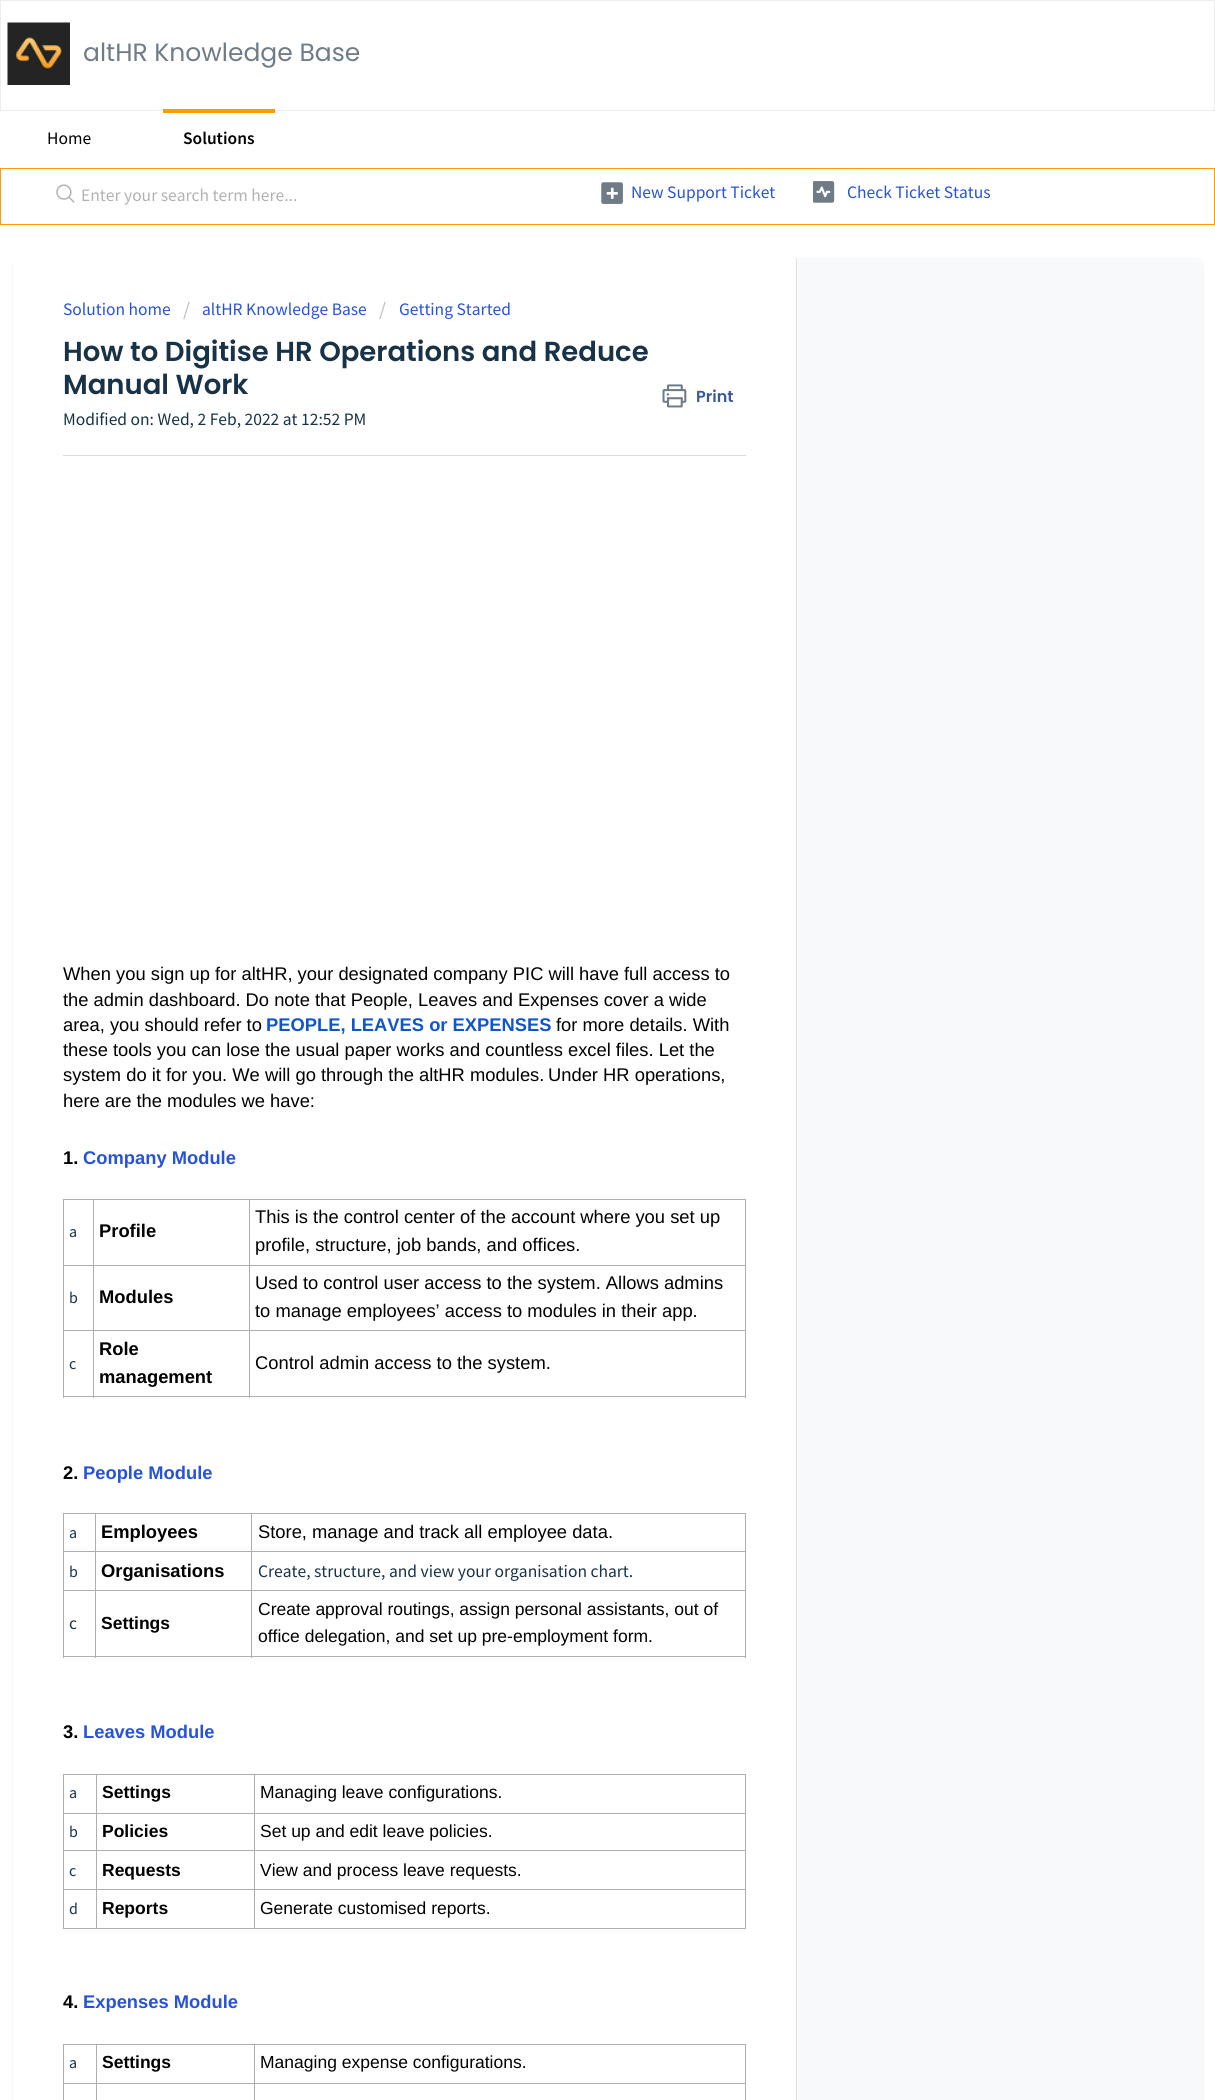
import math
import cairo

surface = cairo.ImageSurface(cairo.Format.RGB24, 1215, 2100)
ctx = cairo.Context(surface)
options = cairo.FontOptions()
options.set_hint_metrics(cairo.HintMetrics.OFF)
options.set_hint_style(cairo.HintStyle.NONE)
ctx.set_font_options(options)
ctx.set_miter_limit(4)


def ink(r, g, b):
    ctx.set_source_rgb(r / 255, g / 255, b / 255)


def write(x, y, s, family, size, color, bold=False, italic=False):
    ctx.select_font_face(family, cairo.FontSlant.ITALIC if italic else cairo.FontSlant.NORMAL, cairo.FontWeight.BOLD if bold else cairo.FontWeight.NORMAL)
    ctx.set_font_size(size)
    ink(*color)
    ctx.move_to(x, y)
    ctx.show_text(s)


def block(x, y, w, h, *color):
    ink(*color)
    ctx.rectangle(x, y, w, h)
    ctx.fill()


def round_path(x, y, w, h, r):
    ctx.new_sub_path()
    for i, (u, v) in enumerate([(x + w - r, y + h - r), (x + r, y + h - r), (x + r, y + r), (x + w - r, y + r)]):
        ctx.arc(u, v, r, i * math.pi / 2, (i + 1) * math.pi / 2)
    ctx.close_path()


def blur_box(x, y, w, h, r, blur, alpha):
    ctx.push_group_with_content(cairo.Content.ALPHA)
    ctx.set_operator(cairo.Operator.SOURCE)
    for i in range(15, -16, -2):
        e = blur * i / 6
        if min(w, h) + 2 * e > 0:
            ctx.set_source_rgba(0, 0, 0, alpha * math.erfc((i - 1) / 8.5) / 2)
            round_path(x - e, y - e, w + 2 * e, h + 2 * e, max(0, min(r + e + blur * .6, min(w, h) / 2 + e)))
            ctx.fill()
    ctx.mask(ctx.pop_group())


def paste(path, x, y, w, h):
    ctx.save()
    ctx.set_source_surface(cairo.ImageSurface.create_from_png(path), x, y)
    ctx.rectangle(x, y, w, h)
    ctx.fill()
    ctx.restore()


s1 = dict(family="Poppins", size=25, color=(111, 124, 135))
s2 = dict(family="Source Sans Pro", size=17.5, color=(0, 0, 0))
s3 = dict(family="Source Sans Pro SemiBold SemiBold", size=17.5, color=(0, 0, 0))
s4 = dict(family="Source Sans Pro", size=17.5, color=(178, 178, 178))
s5 = dict(family="Source Sans Pro", size=17.5, color=(39, 83, 215))
s6 = dict(family="Source Sans Pro", size=20, color=(187, 187, 187))
s7 = dict(family="Poppins SemiBold", size=27.5, color=(24, 50, 71))
s8 = dict(family="Poppins SemiBold", size=16, color=(59, 89, 152))
s9 = dict(family="Source Sans Pro", size=17.5, color=(24, 50, 71))
s10 = dict(family="Liberation Sans", size=18.35, color=(0, 0, 0))
s11 = dict(family="Liberation Sans", size=18.35, color=(17, 85, 204), bold=True)
s12 = dict(family="Liberation Sans", size=18.35, color=(0, 0, 0), bold=True)
s13 = dict(family="Liberation Sans", size=18.35, color=(39, 83, 215), bold=True)
s14 = dict(family="Source Sans Pro", size=16, color=(24, 50, 71))
s15 = dict(family="Liberation Sans", size=17.5, color=(0, 0, 0), bold=True)
s16 = dict(family="Liberation Sans", size=17.5, color=(0, 0, 0))

ink(255, 255, 255)
ctx.paint()
ctx.rectangle(0.5, 0.5, 1214, 110)
ink(235, 238, 240)
ctx.set_line_width(1)
ctx.stroke()
paste("pic1.png", 7, 22, 63, 63)
write(83, 61, "altHR Knowledge Base", **s1)
write(47, 144, "Home", **s2)
block(163, 109, 112, 4, 255, 157, 0)
write(183, 144, "Solutions", **s3)
ctx.rectangle(0.5, 168.5, 1214, 56)
ink(255, 157, 0)
ctx.stroke()
paste("pic2.png", 56, 184, 19, 19)
write(81, 201, "Enter your search term here...", **s4)
paste("pic3.png", 601, 182, 22, 22)
write(631, 198, "New Support Ticket", **s5)
paste("pic4.png", 813, 181, 22, 22)
write(847, 198, "Check Ticket Status", **s5)
ink(63, 63, 68)
blur_box(13, 259, 1190, 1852, 8, 1, 0.15)
ink(248, 249, 250)
round_path(13, 258, 1190, 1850, 8)
ctx.fill()
ink(255, 255, 255)
ctx.new_path()
ctx.move_to(21, 258)
ctx.line_to(798, 258)
ctx.line_to(798, 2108)
ctx.line_to(21, 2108)
ctx.curve_to(16.5, 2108, 13, 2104.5, 13, 2100)
ctx.line_to(13, 266)
ctx.curve_to(13, 261.5, 16.5, 258, 21, 258)
ctx.close_path()
ctx.fill()
block(796, 258, 1, 1842, 218, 223, 227)
write(63, 315, "Solution home", **s5)
write(183, 316, "/", **s6)
write(202, 315, "altHR Knowledge Base", **s5)
write(379, 316, "/", **s6)
write(399, 315, "Getting Started", **s5)
write(63, 361, "How to Digitise HR Operations and Reduce", **s7)
write(63, 394, "Manual Work", **s7)
paste("pic5.png", 662, 384, 25, 24)
write(696, 402, "Print", **s8)
write(63, 425, "Modified on: Wed, 2 Feb, 2022 at 12:52 PM", **s9)
block(63, 455, 683, 1, 220, 220, 220)
write(63, 980, "When you sign up for altHR, your designated company PIC will have full access to", **s10)
write(63, 1006, "the admin dashboard. Do note that People, Leaves and Expenses cover a wide", **s10)
write(63, 1031, "area, you should refer to", **s10)
write(266, 1031, "PEOPLE, LEAVES or EXPENSES", **s11)
write(556, 1031, "for more details. With", **s10)
write(63, 1056, "these tools you can lose the usual paper works and countless excel files. Let the", **s10)
write(63, 1081, "system do it for you. We will go through the altHR modules.", **s10)
write(548, 1081, "Under HR operations,", **s10)
write(63, 1107, "here are the modules we have:", **s10)
write(63, 1164, "1.", **s12)
write(83, 1164, "Company Module", **s13)
block(249, 1199, 497, 1, 175, 175, 175)
block(249, 1265, 497, 1, 175, 175, 175)
block(249, 1330, 497, 1, 175, 175, 175)
block(745, 1330, 1, 68, 175, 175, 175)
block(249, 1396, 497, 1, 175, 175, 175)
block(249, 1330, 1, 68, 175, 175, 175)
block(93, 1330, 157, 1, 175, 175, 175)
block(249, 1265, 1, 66, 175, 175, 175)
block(93, 1265, 157, 1, 175, 175, 175)
block(249, 1199, 1, 67, 175, 175, 175)
block(93, 1199, 157, 1, 175, 175, 175)
block(93, 1396, 157, 1, 175, 175, 175)
block(93, 1330, 1, 68, 175, 175, 175)
block(63, 1330, 31, 1, 175, 175, 175)
block(93, 1265, 1, 66, 175, 175, 175)
block(63, 1265, 31, 1, 175, 175, 175)
block(93, 1199, 1, 67, 175, 175, 175)
block(63, 1199, 31, 1, 175, 175, 175)
block(63, 1396, 31, 1, 175, 175, 175)
block(63, 1330, 1, 68, 175, 175, 175)
block(63, 1265, 1, 66, 175, 175, 175)
block(63, 1199, 1, 67, 175, 175, 175)
write(69, 1237, "a", **s14)
write(99, 1237, "Profile", **s12)
block(745, 1265, 1, 66, 175, 175, 175)
block(745, 1199, 1, 67, 175, 175, 175)
write(255, 1223, "This is the control center of the account where you set up", **s10)
write(255, 1251, "profile, structure, job bands, and offices.", **s10)
write(69, 1303, "b", **s14)
write(99, 1303, "Modules", **s12)
write(255, 1289, "Used to control user access to the system. Allows admins", **s10)
write(255, 1317, "to manage employees’ access to modules in their app.", **s10)
write(69, 1369, "c", **s14)
write(99, 1355, "Role", **s12)
write(99, 1383, "management", **s12)
write(255, 1369, "Control admin access to the system.", **s10)
write(63, 1479, "2.", **s12)
write(83, 1479, "People Module", **s13)
block(251, 1513, 495, 1, 175, 175, 175)
block(251, 1551, 495, 1, 175, 175, 175)
block(251, 1590, 495, 1, 175, 175, 175)
block(745, 1590, 1, 68, 175, 175, 175)
block(251, 1656, 495, 1, 175, 175, 175)
block(251, 1590, 1, 68, 175, 175, 175)
block(95, 1590, 158, 1, 175, 175, 175)
block(251, 1551, 1, 40, 175, 175, 175)
block(95, 1551, 158, 1, 175, 175, 175)
block(251, 1513, 1, 40, 175, 175, 175)
block(95, 1513, 158, 1, 175, 175, 175)
block(95, 1656, 158, 1, 175, 175, 175)
block(95, 1590, 1, 68, 175, 175, 175)
block(63, 1590, 33, 1, 175, 175, 175)
block(95, 1551, 1, 40, 175, 175, 175)
block(63, 1551, 33, 1, 175, 175, 175)
block(95, 1513, 1, 40, 175, 175, 175)
block(63, 1513, 33, 1, 175, 175, 175)
block(63, 1656, 33, 1, 175, 175, 175)
block(63, 1590, 1, 68, 175, 175, 175)
block(63, 1551, 1, 40, 175, 175, 175)
block(63, 1513, 1, 40, 175, 175, 175)
write(69, 1538, "a", **s14)
write(101, 1538, "Employees", **s12)
block(745, 1551, 1, 40, 175, 175, 175)
block(745, 1513, 1, 40, 175, 175, 175)
write(258, 1538, "Store, manage and track all employee data.", **s10)
write(69, 1577, "b", **s14)
write(101, 1577, "Organisations", **s12)
write(258, 1577, "Create, structure, and view your organisation chart.", **s9)
write(69, 1629, "c", **s9)
write(101, 1629, "Settings", **s15)
write(258, 1615, "Create approval routings, assign personal assistants, out of", **s16)
write(258, 1642, "office delegation, and set up pre-employment form.", **s16)
write(63, 1738, "3.", **s12)
write(83, 1738, "Leaves Module", **s13)
block(254, 1774, 492, 1, 175, 175, 175)
block(254, 1813, 492, 1, 175, 175, 175)
block(254, 1850, 492, 1, 175, 175, 175)
block(254, 1889, 492, 1, 175, 175, 175)
block(745, 1889, 1, 40, 175, 175, 175)
block(254, 1928, 492, 1, 175, 175, 175)
block(254, 1889, 1, 40, 175, 175, 175)
block(96, 1889, 159, 1, 175, 175, 175)
block(254, 1850, 1, 40, 175, 175, 175)
block(96, 1850, 159, 1, 175, 175, 175)
block(254, 1813, 1, 38, 175, 175, 175)
block(96, 1813, 159, 1, 175, 175, 175)
block(254, 1774, 1, 40, 175, 175, 175)
block(96, 1774, 159, 1, 175, 175, 175)
block(96, 1928, 159, 1, 175, 175, 175)
block(96, 1889, 1, 40, 175, 175, 175)
block(63, 1889, 35, 1, 175, 175, 175)
block(96, 1850, 1, 40, 175, 175, 175)
block(63, 1850, 35, 1, 175, 175, 175)
block(96, 1813, 1, 38, 175, 175, 175)
block(63, 1813, 35, 1, 175, 175, 175)
block(96, 1774, 1, 40, 175, 175, 175)
block(63, 1774, 35, 1, 175, 175, 175)
block(63, 1928, 35, 1, 175, 175, 175)
block(63, 1889, 1, 40, 175, 175, 175)
block(63, 1850, 1, 40, 175, 175, 175)
block(63, 1813, 1, 38, 175, 175, 175)
block(63, 1774, 1, 40, 175, 175, 175)
write(69, 1798, "a", **s14)
write(102, 1798, "Settings", **s15)
block(745, 1850, 1, 40, 175, 175, 175)
block(745, 1813, 1, 38, 175, 175, 175)
block(745, 1774, 1, 40, 175, 175, 175)
write(260, 1798, "Managing leave configurations.", **s16)
write(69, 1837, "b", **s14)
write(102, 1837, "Policies", **s15)
write(260, 1837, "Set up and edit leave policies.", **s16)
write(69, 1876, "c", **s14)
write(102, 1876, "Requests", **s15)
write(260, 1876, "View and process leave requests.", **s16)
write(69, 1914, "d", **s14)
write(102, 1914, "Reports", **s15)
write(260, 1914, "Generate customised reports.", **s16)
ctx.save()
ctx.rectangle(63, 478, 683, 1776)
ctx.clip()
write(63, 2008, "4.", **s12)
ctx.restore()
write(83, 2008, "Expenses Module", **s13)
block(254, 2044, 492, 1, 175, 175, 175)
block(254, 2083, 492, 1, 175, 175, 175)
block(254, 2083, 1, 17, 175, 175, 175)
block(96, 2083, 159, 1, 175, 175, 175)
block(254, 2044, 1, 40, 175, 175, 175)
block(96, 2044, 159, 1, 175, 175, 175)
block(96, 2083, 1, 17, 175, 175, 175)
block(63, 2083, 35, 1, 175, 175, 175)
block(96, 2044, 1, 40, 175, 175, 175)
block(63, 2044, 35, 1, 175, 175, 175)
block(63, 2083, 1, 17, 175, 175, 175)
block(63, 2044, 1, 40, 175, 175, 175)
write(69, 2068, "a", **s14)
write(102, 2068, "Settings", **s15)
block(745, 2083, 1, 17, 175, 175, 175)
block(745, 2044, 1, 40, 175, 175, 175)
write(260, 2068, "Managing expense configurations.", **s16)
surface.write_to_png("screenshot.png")
